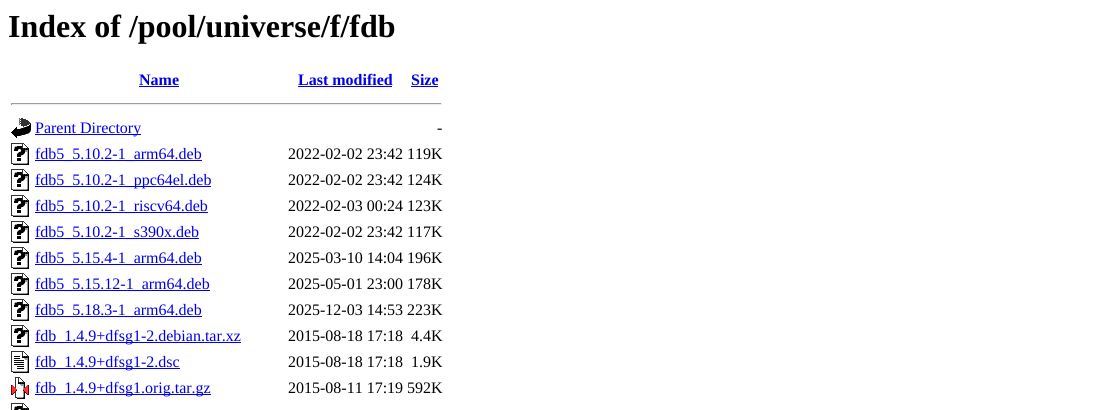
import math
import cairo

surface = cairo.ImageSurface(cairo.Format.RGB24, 1115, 410)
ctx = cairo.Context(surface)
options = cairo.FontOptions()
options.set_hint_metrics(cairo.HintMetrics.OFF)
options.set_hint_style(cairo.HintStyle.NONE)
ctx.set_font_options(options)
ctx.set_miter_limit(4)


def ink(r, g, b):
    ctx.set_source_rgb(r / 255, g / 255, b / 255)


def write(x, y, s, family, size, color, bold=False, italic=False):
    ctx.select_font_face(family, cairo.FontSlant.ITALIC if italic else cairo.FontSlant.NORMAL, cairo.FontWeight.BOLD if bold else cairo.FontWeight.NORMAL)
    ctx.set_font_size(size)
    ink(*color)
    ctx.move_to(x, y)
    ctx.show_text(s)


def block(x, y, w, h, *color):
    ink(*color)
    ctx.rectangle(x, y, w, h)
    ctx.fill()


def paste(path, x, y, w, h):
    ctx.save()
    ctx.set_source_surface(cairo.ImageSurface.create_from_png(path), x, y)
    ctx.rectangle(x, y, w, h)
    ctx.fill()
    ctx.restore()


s1 = dict(family="Liberation Serif", size=32, color=(0, 0, 0), bold=True)
s2 = dict(family="Liberation Serif", size=16, color=(0, 0, 238), bold=True)
s3 = dict(family="Liberation Serif", size=16, color=(0, 0, 238))
s4 = dict(family="Liberation Serif", size=16, color=(0, 0, 0))

ink(255, 255, 255)
ctx.paint()
write(8, 37, "Index of /pool/universe/f/fdb", **s1)
write(139, 85, "Name", **s2)
block(139, 86, 40, 1, 0, 0, 238)
write(298, 85, "Last modified", **s2)
block(298, 86, 94, 1, 0, 0, 238)
write(411, 85, "Size", **s2)
block(411, 86, 27, 1, 0, 0, 238)
block(11, 103, 431, 1, 159, 159, 159)
block(441, 103, 1, 2, 238, 238, 238)
block(11, 104, 431, 1, 238, 238, 238)
block(11, 103, 1, 2, 159, 159, 159)
paste("pic1.png", 11, 118, 20, 20)
block(35, 134, 106, 1, 0, 0, 238)
write(35, 133, "Parent Directory", **s3)
write(437, 133, "-", **s4)
paste("pic2.png", 11, 143, 18, 22)
block(35, 160, 167, 1, 0, 0, 238)
write(35, 159, "fdb5_5.10.2-1_arm64.deb", **s3)
write(288, 159, "2022-02-02 23:42 119K", **s4)
paste("pic2.png", 11, 169, 18, 22)
block(35, 186, 176, 1, 0, 0, 238)
write(35, 185, "fdb5_5.10.2-1_ppc64el.deb", **s3)
write(288, 185, "2022-02-02 23:42 124K", **s4)
paste("pic2.png", 11, 195, 18, 22)
block(35, 212, 173, 1, 0, 0, 238)
write(35, 211, "fdb5_5.10.2-1_riscv64.deb", **s3)
write(288, 211, "2022-02-03 00:24 123K", **s4)
paste("pic2.png", 11, 221, 18, 22)
block(35, 238, 164, 1, 0, 0, 238)
write(35, 237, "fdb5_5.10.2-1_s390x.deb", **s3)
write(288, 237, "2022-02-02 23:42 117K", **s4)
paste("pic2.png", 11, 247, 18, 22)
block(35, 264, 167, 1, 0, 0, 238)
write(35, 263, "fdb5_5.15.4-1_arm64.deb", **s3)
write(288, 263, "2025-03-10 14:04 196K", **s4)
paste("pic2.png", 11, 273, 18, 22)
block(35, 290, 175, 1, 0, 0, 238)
write(35, 289, "fdb5_5.15.12-1_arm64.deb", **s3)
write(288, 289, "2025-05-01 23:00 178K", **s4)
paste("pic2.png", 11, 299, 18, 22)
block(35, 316, 167, 1, 0, 0, 238)
write(35, 315, "fdb5_5.18.3-1_arm64.deb", **s3)
write(288, 315, "2025-12-03 14:53 223K", **s4)
paste("pic2.png", 11, 325, 18, 22)
block(35, 342, 206, 1, 0, 0, 238)
write(35, 341, "fdb_1.4.9+dfsg1-2.debian.tar.xz", **s3)
write(288, 341, "2015-08-18 17:18", **s4)
write(411, 341, "4.4K", **s4)
paste("pic3.png", 11, 351, 18, 22)
block(35, 368, 145, 1, 0, 0, 238)
write(35, 367, "fdb_1.4.9+dfsg1-2.dsc", **s3)
write(288, 367, "2015-08-18 17:18", **s4)
write(411, 367, "1.9K", **s4)
paste("pic4.png", 11, 377, 18, 22)
block(35, 394, 176, 1, 0, 0, 238)
write(35, 393, "fdb_1.4.9+dfsg1.orig.tar.gz", **s3)
write(288, 393, "2015-08-11 17:19 592K", **s4)
paste("pic5.png", 11, 403, 18, 7)
surface.write_to_png("screenshot.png")
